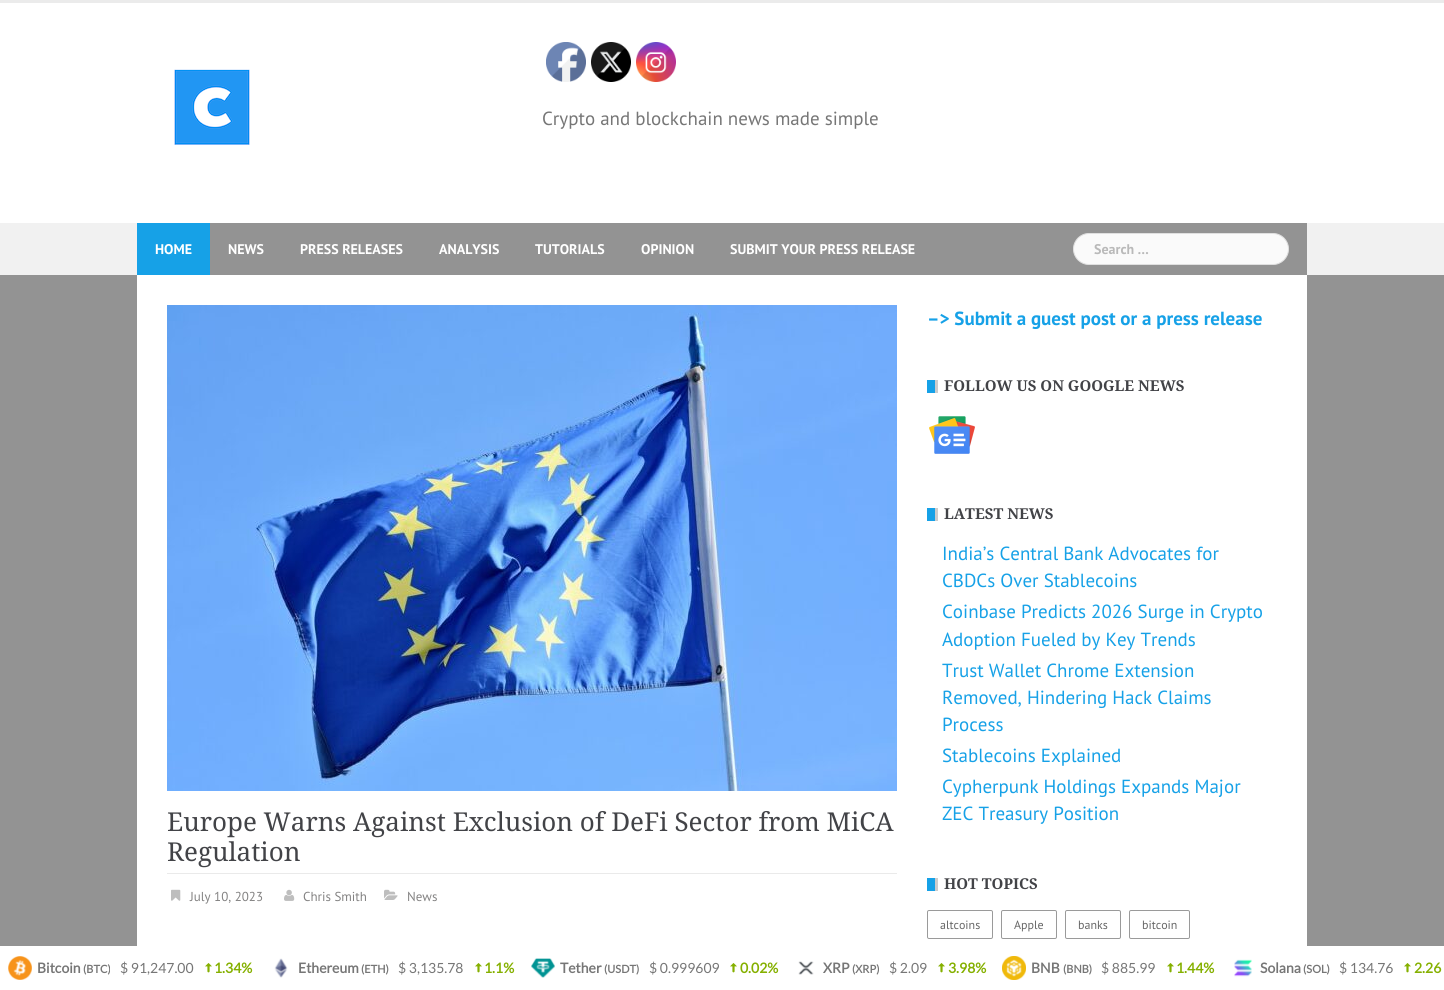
import math
import cairo

surface = cairo.ImageSurface(cairo.Format.RGB24, 1444, 990)
ctx = cairo.Context(surface)
options = cairo.FontOptions()
options.set_hint_metrics(cairo.HintMetrics.OFF)
options.set_hint_style(cairo.HintStyle.NONE)
ctx.set_font_options(options)
ctx.set_miter_limit(4)


def ink(r, g, b):
    ctx.set_source_rgb(r / 255, g / 255, b / 255)


def write(x, y, s, family, size, color, bold=False, italic=False):
    ctx.select_font_face(family, cairo.FontSlant.ITALIC if italic else cairo.FontSlant.NORMAL, cairo.FontWeight.BOLD if bold else cairo.FontWeight.NORMAL)
    ctx.set_font_size(size)
    ink(*color)
    ctx.move_to(x, y)
    ctx.show_text(s)


def block(x, y, w, h, *color):
    ink(*color)
    ctx.rectangle(x, y, w, h)
    ctx.fill()


def round_path(x, y, w, h, r):
    ctx.new_sub_path()
    for i, (u, v) in enumerate([(x + w - r, y + h - r), (x + r, y + h - r), (x + r, y + r), (x + w - r, y + r)]):
        ctx.arc(u, v, r, i * math.pi / 2, (i + 1) * math.pi / 2)
    ctx.close_path()


def paste(path, x, y, w, h):
    ctx.save()
    ctx.set_source_surface(cairo.ImageSurface.create_from_png(path), x, y)
    ctx.rectangle(x, y, w, h)
    ctx.fill()
    ctx.restore()


s1 = dict(family="PT Sans", size=19, color=(118, 118, 118))
s2 = dict(family="PT Sans", size=14, color=(255, 255, 255), bold=True)
s3 = dict(family="PT Sans", size=14, color=(185, 185, 185), bold=True)
s4 = dict(family="Droid Serif", size=26, color=(66, 67, 71))
s5 = dict(family="PT Sans", size=13, color=(131, 130, 130))
s6 = dict(family="PT Sans", size=19, color=(22, 161, 231), bold=True)
s7 = dict(family="Droid Serif", size=15, color=(66, 67, 71), bold=True)
s8 = dict(family="PT Sans", size=19, color=(22, 161, 231))
s9 = dict(family="PT Sans", size=12, color=(102, 102, 102))
s10 = dict(family="Lato", size=14, color=(118, 118, 118), bold=True)
s11 = dict(family="Lato", size=11, color=(118, 118, 118), bold=True)
s12 = dict(family="Lato", size=14, color=(118, 118, 118))
s13 = dict(family="Lato", size=14, color=(133, 176, 0), bold=True)

ink(147, 147, 147)
ctx.paint()
block(0, 0, 1444, 3, 235, 235, 235)
block(0, 3, 1444, 220, 255, 255, 255)
paste("pic1.png", 174, 69, 76, 76)
paste("pic2.png", 546, 42, 40, 40)
paste("pic3.png", 591, 42, 40, 40)
paste("pic4.png", 636, 42, 40, 40)
write(542, 125, "Crypto and blockchain news made simple", **s1)
block(0, 223, 1444, 52, 241, 241, 241)
block(210, 223, 1097, 52, 147, 147, 147)
block(137, 223, 73, 52, 22, 161, 231)
write(155, 254, "HOME", **s2)
write(228, 254, "NEWS", **s2)
write(300, 254, "PRESS RELEASES", **s2)
write(439, 254, "ANALYSIS", **s2)
write(535, 254, "TUTORIALS", **s2)
write(641, 254, "OPINION", **s2)
write(730, 254, "SUBMIT YOUR PRESS RELEASE", **s2)
ink(250, 250, 250)
round_path(1073.5, 233.5, 215, 31, 15.5)
ctx.fill_preserve()
ink(223, 223, 223)
ctx.set_line_width(1)
ctx.stroke()
write(1094, 254, "Search …", **s3)
block(137, 275, 1170, 671, 255, 255, 255)
paste("pic5.png", 167, 305, 730, 486)
block(167, 873, 730, 1, 234, 234, 234)
write(167, 831, "Europe Warns Against Exclusion of DeFi Sector from MiCA", **s4)
write(167, 861, "Regulation", **s4)
paste("pic6.png", 171, 889, 10, 12)
write(190, 901, "July 10, 2023", **s5)
paste("pic7.png", 284, 889, 11, 12)
write(303, 901, "Chris Smith", **s5)
paste("pic8.png", 384, 889, 14, 11)
write(407, 901, "News", **s5)
write(927, 325, "–> Submit a guest post or a press release", **s6)
block(927, 380, 8, 13, 22, 161, 231)
block(935, 380, 3, 13, 204, 204, 204)
write(944, 391, "FOLLOW US ON GOOGLE NEWS", **s7)
paste("pic9.png", 929, 416, 46, 38)
block(927, 508, 8, 13, 22, 161, 231)
block(935, 508, 3, 13, 204, 204, 204)
write(944, 519, "LATEST NEWS", **s7)
write(942, 560, "India’s Central Bank Advocates for", **s8)
write(942, 587, "CBDCs Over Stablecoins", **s8)
write(942, 618, "Coinbase Predicts 2026 Surge in Crypto", **s8)
write(942, 646, "Adoption Fueled by Key Trends", **s8)
write(942, 677, "Trust Wallet Chrome Extension", **s8)
write(942, 704, "Removed, Hindering Hack Claims", **s8)
write(942, 731, "Process", **s8)
write(942, 762, "Stablecoins Explained", **s8)
write(942, 793, "Cypherpunk Holdings Expands Major", **s8)
write(942, 820, "ZEC Treasury Position", **s8)
block(927, 878, 8, 13, 22, 161, 231)
block(935, 878, 3, 13, 204, 204, 204)
write(944, 889, "HOT TOPICS", **s7)
round_path(927.5, 910.5, 65, 28, 1.5)
ink(154, 154, 154)
ctx.stroke()
write(940, 929, "altcoins", **s9)
round_path(1001.5, 910.5, 55, 28, 1.5)
ink(154, 154, 154)
ctx.stroke()
write(1014, 929, "Apple", **s9)
round_path(1065.5, 910.5, 55, 28, 1.5)
ink(154, 154, 154)
ctx.stroke()
write(1078, 929, "banks", **s9)
round_path(1129.5, 910.5, 60, 28, 1.5)
ink(154, 154, 154)
ctx.stroke()
write(1142, 929, "bitcoin", **s9)
block(0, 946, 1444, 44, 255, 255, 255)
paste("pic10.png", 8, 956, 24, 24)
write(37, 973, "Bitcoin", **s10)
write(83, 973, "(BTC)", **s11)
write(120, 973, "$ 91,247.00", **s12)
paste("pic11.png", 205, 963, 7, 10)
write(214, 973, "1.34%", **s13)
paste("pic12.png", 274, 958, 14, 20)
write(298, 973, "Ethereum", **s10)
write(361, 973, "(ETH)", **s11)
write(398, 973, "$ 3,135.78", **s12)
paste("pic11.png", 475, 963, 7, 10)
write(484, 973, "1.1%", **s13)
paste("pic13.png", 531, 958, 24, 20)
write(560, 973, "Tether", **s10)
write(604, 973, "(USDT)", **s11)
write(649, 973, "$ 0.999609", **s12)
paste("pic11.png", 730, 963, 7, 10)
write(740, 973, "0.02%", **s13)
paste("pic14.png", 798, 961, 16, 14)
write(823, 973, "XRP", **s10)
write(852, 973, "(XRP)", **s11)
write(889, 973, "$ 2.09", **s12)
paste("pic11.png", 938, 963, 7, 10)
write(948, 973, "3.98%", **s13)
paste("pic15.png", 1002, 956, 24, 24)
write(1031, 973, "BNB", **s10)
write(1063, 973, "(BNB)", **s11)
write(1101, 973, "$ 885.99", **s12)
paste("pic11.png", 1167, 963, 7, 10)
write(1176, 973, "1.44%", **s13)
paste("pic16.png", 1234, 959, 18, 18)
write(1260, 973, "Solana", **s10)
write(1303, 973, "(SOL)", **s11)
write(1339, 973, "$ 134.76", **s12)
paste("pic11.png", 1404, 963, 7, 10)
write(1414, 973, "2.26", **s13)
surface.write_to_png("screenshot.png")
